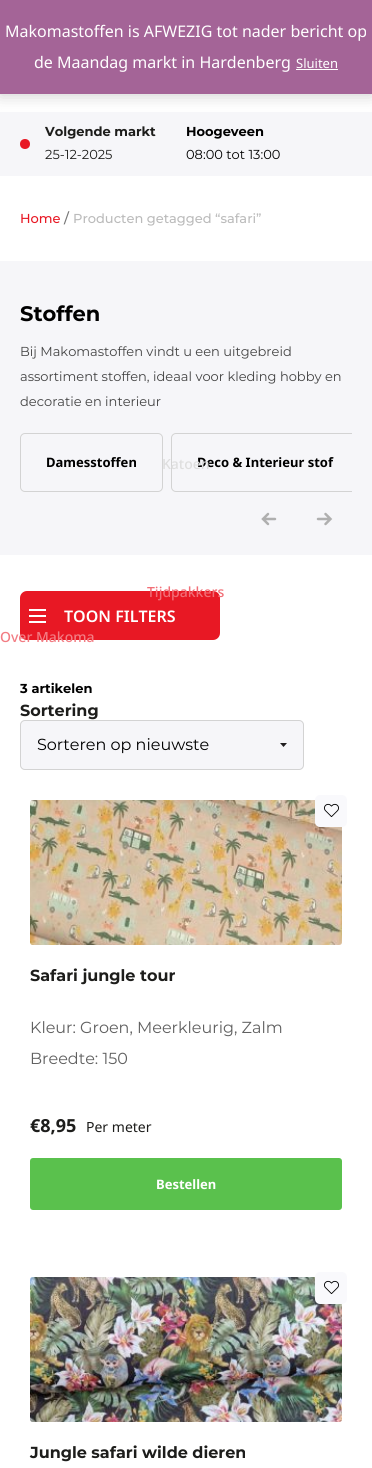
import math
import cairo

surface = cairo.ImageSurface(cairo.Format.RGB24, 372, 1468)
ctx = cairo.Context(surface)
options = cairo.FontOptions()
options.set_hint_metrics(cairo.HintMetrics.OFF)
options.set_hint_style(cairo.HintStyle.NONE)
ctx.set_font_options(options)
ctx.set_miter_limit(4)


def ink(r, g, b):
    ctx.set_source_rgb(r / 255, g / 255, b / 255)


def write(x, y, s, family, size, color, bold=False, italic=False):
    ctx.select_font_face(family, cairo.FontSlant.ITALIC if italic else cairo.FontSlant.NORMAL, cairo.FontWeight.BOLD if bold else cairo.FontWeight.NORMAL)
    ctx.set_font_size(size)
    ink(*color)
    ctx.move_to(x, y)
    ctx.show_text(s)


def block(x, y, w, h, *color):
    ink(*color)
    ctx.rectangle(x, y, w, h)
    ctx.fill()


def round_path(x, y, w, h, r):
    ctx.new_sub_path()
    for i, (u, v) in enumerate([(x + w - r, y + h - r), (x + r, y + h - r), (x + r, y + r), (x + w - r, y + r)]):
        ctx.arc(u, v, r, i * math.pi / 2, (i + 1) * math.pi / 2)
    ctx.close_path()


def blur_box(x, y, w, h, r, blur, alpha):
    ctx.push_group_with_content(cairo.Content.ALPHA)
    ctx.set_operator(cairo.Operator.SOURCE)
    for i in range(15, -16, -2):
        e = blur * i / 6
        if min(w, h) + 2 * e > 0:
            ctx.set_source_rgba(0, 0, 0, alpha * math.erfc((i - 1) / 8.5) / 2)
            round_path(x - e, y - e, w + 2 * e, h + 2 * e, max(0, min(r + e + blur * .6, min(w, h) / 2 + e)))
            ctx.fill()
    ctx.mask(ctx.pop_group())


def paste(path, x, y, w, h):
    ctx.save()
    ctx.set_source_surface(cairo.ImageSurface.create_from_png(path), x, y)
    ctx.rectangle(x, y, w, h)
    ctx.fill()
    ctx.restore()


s1 = dict(family="Noto Sans", size=16, color=(255, 255, 255))
s2 = dict(family="Noto Sans", size=13, color=(255, 255, 255))
s3 = dict(family="Montserrat", size=13, color=(29, 29, 27), bold=True)
s4 = dict(family="Montserrat", size=13, color=(29, 29, 27))
s5 = dict(family="Montserrat", size=13, color=(0, 0, 0), bold=True)
s6 = dict(family="Montserrat", size=13, color=(0, 0, 0))
s7 = dict(family="Noto Sans", size=13, color=(0, 0, 0), bold=True)
s8 = dict(family="Noto Sans Medium", size=14, color=(222, 222, 222))
s9 = dict(family="Noto Sans Medium", size=14, color=(241, 110, 118))
s10 = dict(family="Noto Sans Medium", size=14, color=(242, 124, 131))
s11 = dict(family="Montserrat Medium", size=13, color=(232, 24, 36))
s12 = dict(family="Montserrat Medium", size=14, color=(118, 118, 118))
s13 = dict(family="Montserrat Medium", size=13, color=(187, 187, 187))
s14 = dict(family="Montserrat", size=21, color=(0, 0, 0), bold=True)
s15 = dict(family="Montserrat", size=13, color=(67, 67, 67))
s16 = dict(family="Noto Sans SemiBold", size=16, color=(255, 255, 255))
s17 = dict(family="Montserrat", size=16, color=(29, 29, 27), bold=True)
s18 = dict(family="Montserrat", size=16, color=(0, 0, 0))
s19 = dict(family="Montserrat", size=16, color=(96, 96, 96))
s20 = dict(family="Noto Sans", size=18, color=(29, 29, 27), bold=True)
s21 = dict(family="Noto Sans", size=14, color=(29, 29, 27))
s22 = dict(family="Noto Sans", size=13, color=(255, 255, 255), bold=True)

ink(255, 255, 255)
ctx.paint()
block(0, 112, 372, 64, 246, 246, 249)
ink(0, 0, 0)
blur_box(0, 1, 372, 94, 0, 8, 0.2)
block(0, 0, 372, 94, 164, 100, 151)
write(5, 37, "Makomastoffen is AFWEZIG tot nader bericht op", **s1)
write(34, 68, "de Maandag markt in Hardenberg", **s1)
write(296, 68, "Sluiten", **s2)
block(296, 69, 42, 1, 255, 255, 255)
write(45, 136, "Volgende markt", **s3)
ink(232, 24, 36)
ctx.new_path()
ctx.arc(25, 144, 5, 0, 2 * math.pi)
ctx.fill()
write(45, 159, "25-12-2025", **s4)
write(186, 136, "Hoogeveen", **s5)
write(186, 159, "08:00 tot 13:00", **s6)
block(0, 261, 372, 294, 246, 246, 249)
ctx.save()
ctx.rectangle(20, 433, 332, 59)
ctx.clip()
round_path(171.5, 433.5, 187, 58, 4.5)
ink(211, 211, 211)
ctx.set_line_width(1)
ctx.stroke()
ctx.restore()
write(197, 467, "Deco & Interieur stof", **s7)
write(162, 469, "Katoen", **s8)
ink(232, 24, 36)
round_path(20, 591, 200, 49, 7)
ctx.fill()
write(147, 597, "Tijdpakkers", **s9)
write(0, 642, "Over Makoma", **s10)
write(20, 223, "Home", **s11)
write(64, 223, "/", **s12)
write(73, 223, "Producten getagged “safari”", **s13)
write(20, 321, "Stoffen", **s14)
write(20, 356, "Bij Makomastoffen vindt u een uitgebreid", **s15)
write(20, 381, "assortiment stoffen, ideaal voor kleding hobby en", **s15)
write(20, 406, "decoratie en interieur", **s15)
round_path(20.5, 433.5, 142, 58, 4.5)
ink(211, 211, 211)
ctx.set_line_width(1)
ctx.stroke()
write(46, 467, "Damesstoffen", **s7)
ctx.new_path()
ctx.move_to(275, 519)
ctx.line_to(264, 519)
ctx.move_to(268, 524)
ctx.line_to(263, 519)
ctx.line_to(268, 514)
ink(175, 175, 175)
ctx.set_line_width(2.5)
ctx.set_line_cap(cairo.LineCap.ROUND)
ctx.stroke()
ctx.new_path()
ctx.move_to(318, 519)
ctx.line_to(329, 519)
ctx.move_to(325.5, 514)
ctx.line_to(330.5, 519)
ctx.line_to(325.5, 524)
ctx.stroke()
block(29, 615, 17, 2, 255, 255, 255)
block(29, 609, 17, 2, 255, 255, 255)
block(29, 621, 17, 2, 255, 255, 255)
write(64, 622, "TOON FILTERS", **s16)
write(20, 693, "3 artikelen", **s5)
write(20, 716, "Sortering", **s17)
ink(246, 246, 249)
round_path(20, 720, 284, 50, 5)
ctx.fill()
ink(32, 30, 32)
ctx.new_path()
ctx.move_to(283.5, 747)
ctx.line_to(280, 743)
ctx.line_to(287, 743)
ctx.close_path()
ctx.fill()
round_path(20.5, 720.5, 283, 49, 4.5)
ink(211, 211, 211)
ctx.set_line_width(1)
ctx.set_line_cap(cairo.LineCap.BUTT)
ctx.stroke()
write(37, 750, "Sorteren op nieuwste", **s18)
paste("pic2.png", 30, 800, 312, 145)
ink(249, 249, 252)
round_path(315, 795, 32, 32, 5)
ctx.fill()
paste("pic1.png", 324, 803, 15, 14)
write(30, 981, "Safari jungle tour", **s17)
write(30, 1033, "Kleur: Groen, Meerkleurig, Zalm", **s19)
write(30, 1064, "Breedte: 150", **s19)
write(30, 1132, "€8,95", **s20)
write(86, 1132, "Per meter", **s21)
ink(90, 193, 77)
round_path(30, 1158, 312, 52, 3)
ctx.fill()
write(156, 1189, "Bestellen", **s22)
paste("pic3.png", 30, 1277, 312, 145)
ink(249, 249, 252)
round_path(315, 1272, 32, 32, 5)
ctx.fill()
paste("pic1.png", 324, 1280, 15, 14)
write(30, 1458, "Jungle safari wilde dieren", **s17)
surface.write_to_png("screenshot.png")
